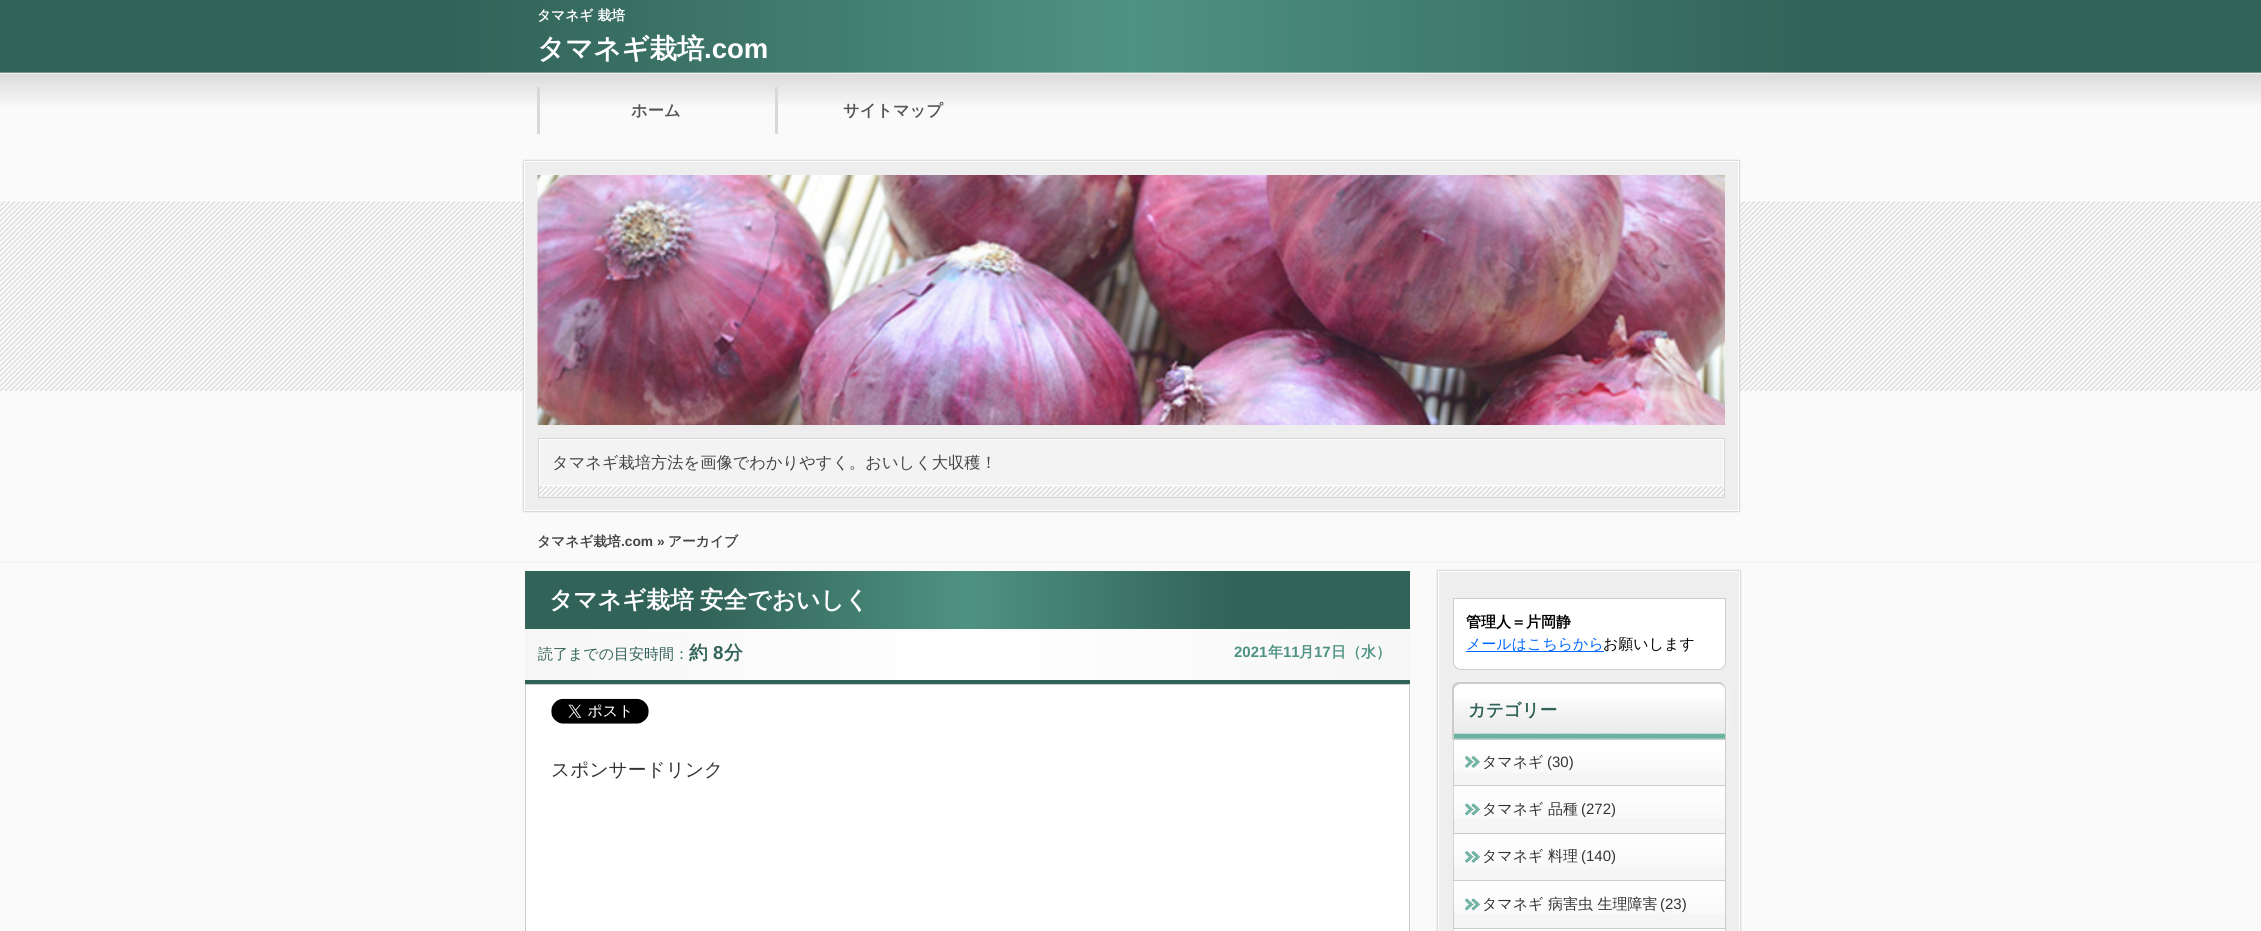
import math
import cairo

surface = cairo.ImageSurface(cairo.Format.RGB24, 2261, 931)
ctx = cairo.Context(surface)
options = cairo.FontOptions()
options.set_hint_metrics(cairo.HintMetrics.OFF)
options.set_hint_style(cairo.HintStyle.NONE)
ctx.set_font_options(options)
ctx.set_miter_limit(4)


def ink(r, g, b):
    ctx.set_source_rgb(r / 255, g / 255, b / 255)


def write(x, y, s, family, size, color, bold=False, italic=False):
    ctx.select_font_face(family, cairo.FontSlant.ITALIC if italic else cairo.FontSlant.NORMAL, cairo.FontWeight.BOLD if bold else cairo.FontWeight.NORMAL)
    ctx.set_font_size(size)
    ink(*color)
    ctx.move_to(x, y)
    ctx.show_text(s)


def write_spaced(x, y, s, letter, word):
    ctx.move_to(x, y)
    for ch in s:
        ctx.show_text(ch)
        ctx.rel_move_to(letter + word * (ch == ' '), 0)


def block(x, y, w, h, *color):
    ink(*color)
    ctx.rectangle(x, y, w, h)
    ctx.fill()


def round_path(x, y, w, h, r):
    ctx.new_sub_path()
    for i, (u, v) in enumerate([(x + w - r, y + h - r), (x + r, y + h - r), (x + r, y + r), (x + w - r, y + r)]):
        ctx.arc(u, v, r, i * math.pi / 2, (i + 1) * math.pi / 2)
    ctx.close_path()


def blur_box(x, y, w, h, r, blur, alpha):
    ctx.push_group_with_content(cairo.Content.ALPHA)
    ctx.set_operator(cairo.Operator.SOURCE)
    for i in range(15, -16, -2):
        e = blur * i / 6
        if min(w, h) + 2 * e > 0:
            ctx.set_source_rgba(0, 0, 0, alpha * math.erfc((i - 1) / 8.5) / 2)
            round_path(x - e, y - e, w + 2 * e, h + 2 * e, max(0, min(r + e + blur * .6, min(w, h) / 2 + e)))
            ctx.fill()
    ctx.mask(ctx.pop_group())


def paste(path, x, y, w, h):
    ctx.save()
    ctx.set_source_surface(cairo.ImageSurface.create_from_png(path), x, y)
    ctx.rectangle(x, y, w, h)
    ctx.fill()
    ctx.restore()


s1 = dict(family="WenQuanYi Zen Hei", size=13.75, color=(255, 255, 255), bold=True)
s2 = dict(family="WenQuanYi Zen Hei", size=27.5, color=(255, 255, 255), bold=True)
s3 = dict(family="Liberation Sans", size=27.5, color=(255, 255, 255), bold=True)
s4 = dict(family="WenQuanYi Zen Hei", size=16.25, color=(85, 85, 85), bold=True)
s5 = dict(family="WenQuanYi Zen Hei Medium", size=16.25, color=(68, 68, 68))
s6 = dict(family="WenQuanYi Zen Hei", size=13.75, color=(68, 68, 68), bold=True)
s7 = dict(family="Liberation Sans", size=13.75, color=(68, 68, 68), bold=True)
s8 = dict(family="WenQuanYi Zen Hei Medium", size=15, color=(50, 99, 88))
s9 = dict(family="WenQuanYi Zen Hei", size=18.75, color=(50, 99, 88), bold=True)
s10 = dict(family="Liberation Sans", size=18.75, color=(50, 99, 88), bold=True)
s11 = dict(family="Liberation Sans", size=15, color=(78, 146, 130), bold=True)
s12 = dict(family="WenQuanYi Zen Hei", size=15, color=(78, 146, 130), bold=True)
s13 = dict(family="WenQuanYi Zen Hei Medium", size=18.75, color=(51, 51, 51))
s14 = dict(family="WenQuanYi Zen Hei", size=15, color=(0, 0, 0), bold=True)
s15 = dict(family="WenQuanYi Zen Hei Medium", size=15, color=(0, 102, 255))
s16 = dict(family="WenQuanYi Zen Hei Medium", size=15, color=(0, 0, 0))
s17 = dict(family="WenQuanYi Zen Hei", size=17.5, color=(50, 99, 88), bold=True)
s18 = dict(family="WenQuanYi Zen Hei Medium", size=15, color=(51, 51, 51))
s19 = dict(family="Liberation Sans", size=15, color=(51, 51, 51))

ink(250, 250, 250)
ctx.paint()
gradient = cairo.LinearGradient(0, 36, 2261, 36)
gradient.add_color_stop_rgba(0.2, 0.196, 0.388, 0.345, 1)
gradient.add_color_stop_rgba(0.5, 0.306, 0.573, 0.51, 1)
gradient.add_color_stop_rgba(0.8, 0.196, 0.388, 0.345, 1)
ctx.set_source(gradient)
ctx.rectangle(0, 0, 2261, 73)
ctx.fill()
write(537, 20, "タマネギ 栽培", **s1)
write(537, 58, "タマネギ栽培", **s2)
write(704, 58, ".com", **s3)
paste("pic1.png", 0, 72, 2261, 33)
block(537, 87, 3, 47, 216, 216, 216)
write(631, 116, "ホーム", **s4)
block(775, 87, 3, 47, 216, 216, 216)
write(843, 116, "サイトマップ", **s4)
paste("pic2.png", 0, 200, 2261, 192)
ink(255, 255, 255)
blur_box(524, 161, 1215, 350, 0, 1, 1)
ink(153, 153, 153)
blur_box(524, 161, 1215, 350, 0, 1, 1)
ink(238, 238, 238)
ctx.rectangle(524.5, 161.5, 1214, 349)
ctx.fill_preserve()
ink(255, 255, 255)
ctx.set_line_width(1)
ctx.stroke()
paste("pic3.png", 537, 175, 1188, 250)
paste("pic4.png", 537, 486, 1187, 11)
ctx.rectangle(538.5, 438.5, 1186, 59)
ink(213, 213, 213)
ctx.stroke()
ink(243, 243, 243)
ctx.rectangle(539.5, 439.5, 1184, 46)
ctx.fill_preserve()
ink(255, 255, 255)
ctx.stroke()
write(552, 468, "タマネギ栽培方法を画像でわかりやすく。おいしく大収穫！", **s5)
paste("pic5.png", 0, 560, 2261, 3)
write(537, 546, "タマネギ栽培", **s6)
write(621, 546, ".com »", **s7)
write(668, 546, "アーカイブ", **s6)
gradient = cairo.LinearGradient(525, 600, 1410, 600)
gradient.add_color_stop_rgba(0.2, 0.196, 0.388, 0.345, 1)
gradient.add_color_stop_rgba(0.5, 0.306, 0.573, 0.51, 1)
gradient.add_color_stop_rgba(0.8, 0.196, 0.388, 0.345, 1)
ctx.set_source(gradient)
ctx.rectangle(525, 571, 885, 58)
ctx.fill()
ctx.set_font_size(23.75)
ink(255, 255, 255)
write_spaced(549, 608, "タマネギ栽培 安全でおいしく", 0, -1)
gradient = cairo.LinearGradient(525, 654, 1410, 654)
gradient.add_color_stop_rgba(0, 0.965, 0.965, 0.965, 1)
gradient.add_color_stop_rgba(0.5, 1, 1, 1, 1)
gradient.add_color_stop_rgba(1, 0.965, 0.965, 0.965, 1)
ctx.set_source(gradient)
ctx.rectangle(525, 629, 885, 51)
ctx.fill()
block(525, 680, 885, 4, 50, 99, 88)
write(538, 659, "読了までの目安時間：", **s8)
write(689, 659, "約", **s9)
write(713, 659, "8", **s10)
write(724, 659, "分", **s9)
write(1234, 657, "2021", **s11)
write(1268, 657, "年", **s12)
write(1283, 657, "11", **s11)
write(1299, 657, "月", **s12)
write(1314, 657, "17", **s11)
write(1331, 657, "日（水）", **s12)
ink(255, 255, 255)
ctx.rectangle(525.5, 684.5, 884, 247)
ctx.fill_preserve()
ink(204, 204, 204)
ctx.stroke()
paste("pic6.png", 551, 698, 98, 26)
write(551, 776, "スポンサードリンク", **s13)
ink(153, 153, 153)
blur_box(1438, 571, 302, 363, 0, 1, 1)
ink(238, 238, 238)
ctx.rectangle(1438.5, 571.5, 301, 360)
ctx.fill_preserve()
ink(255, 255, 255)
ctx.stroke()
ctx.new_path()
ctx.move_to(1453.5, 598.5)
ctx.line_to(1725.5, 598.5)
ctx.line_to(1725.5, 662)
ctx.curve_to(1725.5, 666, 1722, 669.5, 1718, 669.5)
ctx.line_to(1461, 669.5)
ctx.curve_to(1457, 669.5, 1453.5, 666, 1453.5, 662)
ctx.close_path()
ctx.fill_preserve()
ink(204, 204, 204)
ctx.stroke()
write(1466, 627, "管理人＝片岡静", **s14)
block(1466, 651, 138, 1, 0, 102, 255)
write(1466, 649, "メールはこちらから", **s15)
write(1603, 649, "お願いします", **s16)
ink(255, 255, 255)
blur_box(1453, 683, 273, 57, 8, 2.5, 1)
ink(238, 238, 238)
blur_box(1453, 683, 273, 57, 8, 2.5, 1)
ink(255, 255, 255)
ctx.new_path()
ctx.move_to(1461, 683)
ctx.line_to(1718, 683)
ctx.curve_to(1722.5, 683, 1726, 686.5, 1726, 691)
ctx.line_to(1726, 740)
ctx.line_to(1453, 740)
ctx.line_to(1453, 691)
ctx.curve_to(1453, 686.5, 1456.5, 683, 1461, 683)
ctx.close_path()
ctx.fill()
paste("pic7.png", 1453, 699, 274, 40)
ink(204, 204, 204)
ctx.new_path()
ctx.move_to(1460, 684)
ctx.curve_to(1458, 684, 1457, 685, 1456, 686)
ctx.line_to(1454, 684)
ctx.line_to(1457, 682)
ctx.line_to(1721, 682)
ctx.line_to(1724, 685)
ctx.line_to(1723, 686)
ctx.curve_to(1722, 685, 1720, 684, 1719, 684)
ctx.close_path()
ctx.fill()
ctx.new_path()
ctx.move_to(1724, 685)
ctx.curve_to(1725, 686, 1726, 688, 1726, 690)
ctx.line_to(1726, 740)
ctx.line_to(1725, 739)
ctx.line_to(1725, 690)
ctx.curve_to(1725, 688, 1724, 687, 1723, 686)
ctx.close_path()
ctx.fill()
ctx.new_path()
ctx.move_to(1452, 740)
ctx.line_to(1452, 687)
ctx.line_to(1454, 684)
ctx.line_to(1456, 686)
ctx.curve_to(1455, 687, 1454, 688, 1454, 690)
ctx.line_to(1454, 738)
ctx.close_path()
ctx.fill()
write(1468, 716, "カテゴリー", **s17)
block(1454, 742, 271, 186, 245, 245, 245)
block(1725, 739, 1, 192, 204, 204, 204)
block(1453, 739, 1, 192, 204, 204, 204)
paste("pic8.png", 1453, 740, 272, 33)
block(1454, 739, 271, 1, 204, 204, 204)
paste("pic9.png", 1465, 756, 16, 13)
write(1482, 767, "タマネギ", **s18)
write(1547, 767, "(30)", **s19)
paste("pic10.png", 1453, 786, 272, 33)
block(1454, 785, 271, 1, 204, 204, 204)
paste("pic11.png", 1465, 803, 16, 13)
write(1482, 814, "タマネギ 品種", **s18)
write(1581, 814, "(272)", **s19)
paste("pic12.png", 1453, 834, 272, 33)
block(1454, 833, 271, 1, 204, 204, 204)
paste("pic13.png", 1465, 851, 16, 13)
write(1482, 861, "タマネギ 料理", **s18)
write(1581, 861, "(140)", **s19)
paste("pic14.png", 1453, 881, 272, 33)
block(1454, 880, 271, 1, 204, 204, 204)
paste("pic11.png", 1465, 898, 16, 13)
write(1482, 909, "タマネギ 病害虫 生理障害", **s18)
write(1660, 909, "(23)", **s19)
paste("pic15.png", 1453, 929, 272, 2)
block(1454, 928, 271, 1, 204, 204, 204)
surface.write_to_png("screenshot.png")
